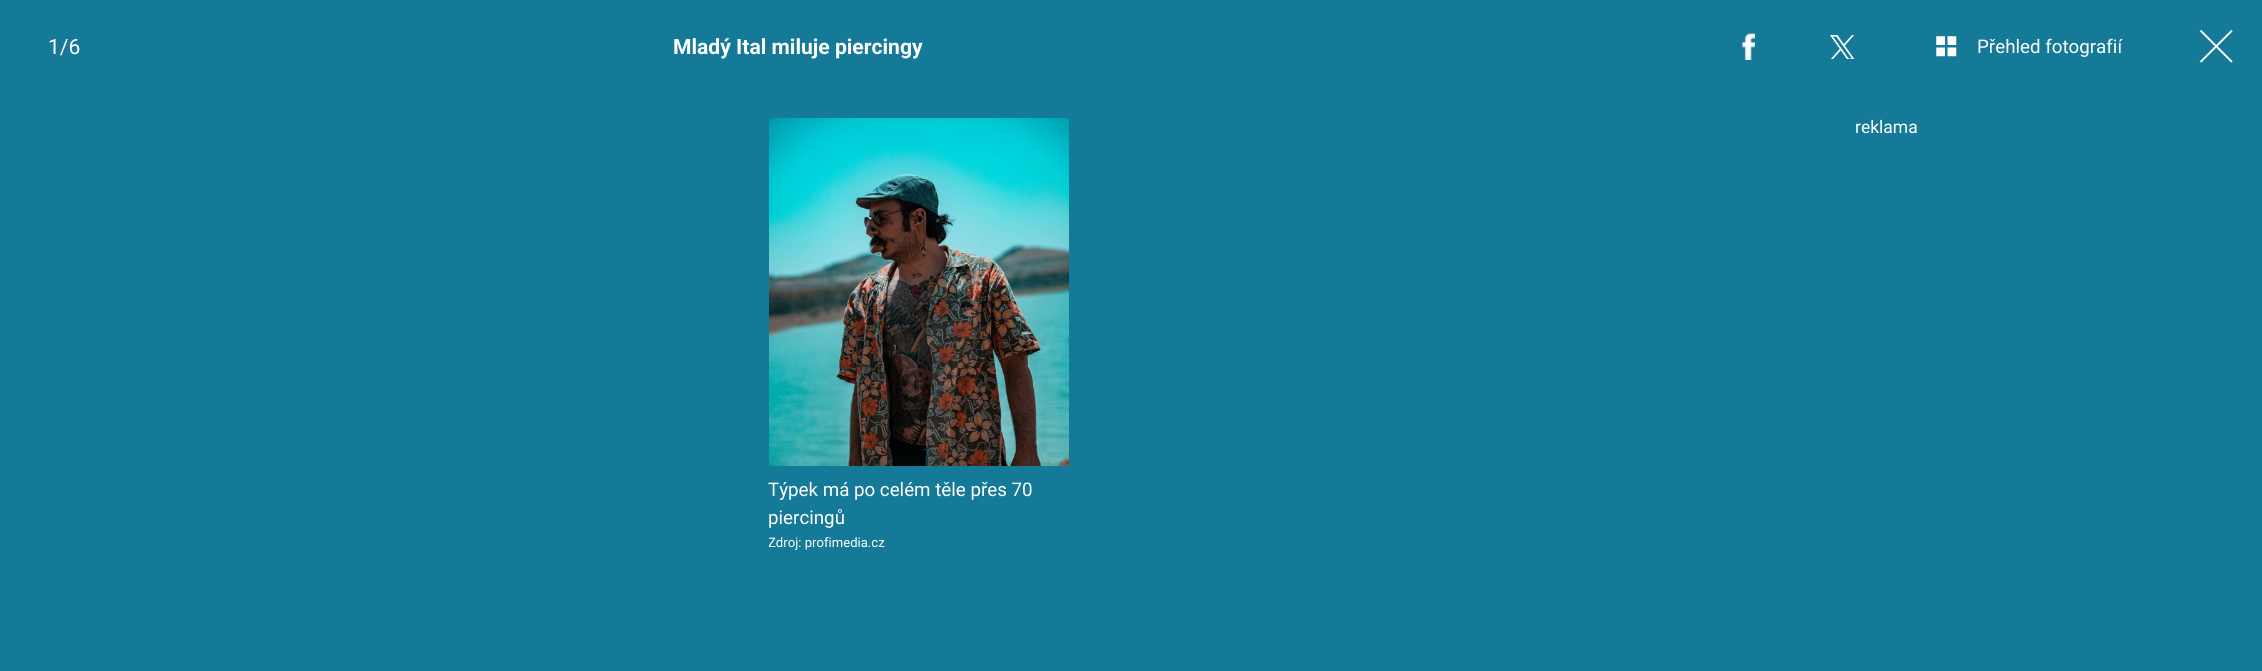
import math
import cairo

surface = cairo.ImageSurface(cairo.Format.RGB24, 2262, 671)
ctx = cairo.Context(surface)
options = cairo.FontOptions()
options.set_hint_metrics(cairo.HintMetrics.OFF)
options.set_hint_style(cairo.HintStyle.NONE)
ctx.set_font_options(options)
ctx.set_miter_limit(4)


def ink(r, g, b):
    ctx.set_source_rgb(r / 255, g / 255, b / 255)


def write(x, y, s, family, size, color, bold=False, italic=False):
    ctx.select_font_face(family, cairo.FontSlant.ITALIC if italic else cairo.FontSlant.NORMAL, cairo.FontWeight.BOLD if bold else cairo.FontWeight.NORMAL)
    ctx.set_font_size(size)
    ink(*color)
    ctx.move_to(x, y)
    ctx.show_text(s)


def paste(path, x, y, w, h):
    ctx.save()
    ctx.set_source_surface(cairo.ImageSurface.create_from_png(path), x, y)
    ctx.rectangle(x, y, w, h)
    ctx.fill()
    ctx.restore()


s1 = dict(family="Roboto", size=21.1, color=(255, 255, 255))
s2 = dict(family="Roboto", size=21.1, color=(255, 255, 255), bold=True)
s3 = dict(family="Roboto", size=18.75, color=(255, 255, 255))
s4 = dict(family="Roboto", size=17.5, color=(255, 255, 255))
s5 = dict(family="Roboto", size=13.1, color=(255, 255, 255))

ink(21, 122, 152)
ctx.paint()
write(48, 54, "1/6", **s1)
write(673, 54, "Mladý Ital miluje piercingy", **s2)
paste("pic1.png", 1742, 33, 13, 27)
paste("pic2.png", 1830, 35, 24, 24)
paste("pic3.png", 1936, 36, 21, 21)
write(1977, 53, "Přehled fotografií", **s3)
ctx.new_path()
ctx.move_to(2200.5, 30.5)
ctx.line_to(2232, 62)
ctx.move_to(2232, 30.5)
ctx.line_to(2200.5, 62)
ctx.set_line_width(1.9)
ctx.stroke()
write(1855, 133, "reklama", **s4)
paste("pic4.png", 769, 118, 300, 348)
write(768, 496, "Týpek má po celém těle přes 70", **s3)
write(768, 524, "piercingů", **s3)
ctx.save()
ctx.rectangle(769, 118, 300, 452)
ctx.clip()
write(768, 547, "Zdroj: profimedia.cz", **s5)
ctx.restore()
surface.write_to_png("screenshot.png")
